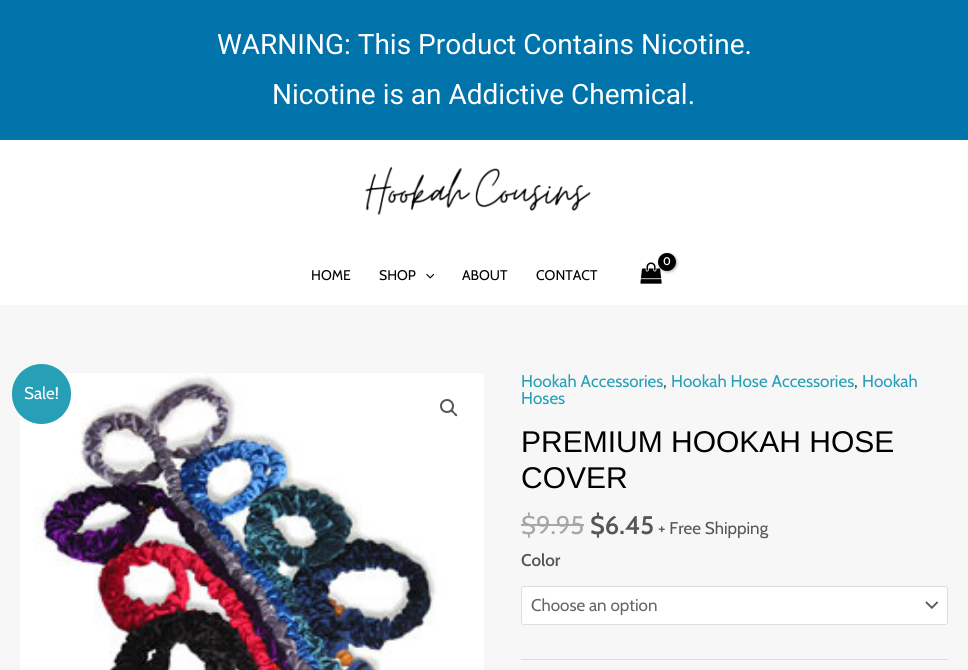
import math
import cairo

surface = cairo.ImageSurface(cairo.Format.RGB24, 968, 670)
ctx = cairo.Context(surface)
options = cairo.FontOptions()
options.set_hint_metrics(cairo.HintMetrics.OFF)
options.set_hint_style(cairo.HintStyle.NONE)
ctx.set_font_options(options)
ctx.set_miter_limit(4)


def ink(r, g, b):
    ctx.set_source_rgb(r / 255, g / 255, b / 255)


def write(x, y, s, family, size, color, bold=False, italic=False):
    ctx.select_font_face(family, cairo.FontSlant.ITALIC if italic else cairo.FontSlant.NORMAL, cairo.FontWeight.BOLD if bold else cairo.FontWeight.NORMAL)
    ctx.set_font_size(size)
    ink(*color)
    ctx.move_to(x, y)
    ctx.show_text(s)


def block(x, y, w, h, *color):
    ink(*color)
    ctx.rectangle(x, y, w, h)
    ctx.fill()


def round_path(x, y, w, h, r):
    ctx.new_sub_path()
    for i, (u, v) in enumerate([(x + w - r, y + h - r), (x + r, y + h - r), (x + r, y + r), (x + w - r, y + r)]):
        ctx.arc(u, v, r, i * math.pi / 2, (i + 1) * math.pi / 2)
    ctx.close_path()


def blur_box(x, y, w, h, r, blur, alpha):
    ctx.push_group_with_content(cairo.Content.ALPHA)
    ctx.set_operator(cairo.Operator.SOURCE)
    for i in range(15, -16, -2):
        e = blur * i / 6
        if min(w, h) + 2 * e > 0:
            ctx.set_source_rgba(0, 0, 0, alpha * math.erfc((i - 1) / 8.5) / 2)
            round_path(x - e, y - e, w + 2 * e, h + 2 * e, max(0, min(r + e + blur * .6, min(w, h) / 2 + e)))
            ctx.fill()
    ctx.mask(ctx.pop_group())


def paste(path, x, y, w, h):
    ctx.save()
    ctx.set_source_surface(cairo.ImageSurface.create_from_png(path), x, y)
    ctx.rectangle(x, y, w, h)
    ctx.fill()
    ctx.restore()


s1 = dict(family="Roboto", size=28, color=(255, 255, 255))
s2 = dict(family="Cabin SemiBold", size=11, color=(255, 255, 255))
s3 = dict(family="Cabin", size=14, color=(0, 0, 0))
s4 = dict(family="Cabin", size=17, color=(38, 159, 183))
s5 = dict(family="Cabin", size=17, color=(86, 86, 86))
s6 = dict(family="Liberation Sans", size=30, color=(0, 0, 0))
s7 = dict(family="Cabin", size=25.5, color=(167, 167, 167))
s8 = dict(family="Cabin SemiBold", size=25.5, color=(86, 86, 86))
s9 = dict(family="Cabin SemiBold", size=17, color=(86, 86, 86))
s10 = dict(family="Cabin", size=17, color=(102, 102, 102))
s11 = dict(family="Cabin", size=17, color=(255, 255, 255))

ink(247, 247, 247)
ctx.paint()
block(0, 0, 968, 140, 0, 115, 170)
write(217, 54, "WARNING: This Product Contains Nicotine.", **s1)
write(272, 104, "Nicotine is an Addictive Chemical.", **s1)
block(0, 140, 968, 165, 255, 255, 255)
paste("pic1.png", 365, 167, 226, 48)
paste("pic2.png", 640, 262, 22, 22)
ink(0, 0, 0)
blur_box(659, 254, 18, 18, 9, 1.5, 0.3)
ink(0, 0, 0)
ctx.arc(667, 262, 9, 0, 2 * math.pi)
ctx.fill()
write(663, 265, "0", **s2)
write(311, 280, "HOME", **s3)
write(379, 280, "SHOP", **s3)
paste("pic3.png", 426, 273, 8, 6)
write(462, 280, "ABOUT", **s3)
write(536, 280, "CONTACT", **s3)
paste("pic4.png", 20, 373, 464, 297)
ctx.arc(447, 406, 6, 0, 2 * math.pi)
ink(86, 86, 86)
ctx.stroke()
ctx.new_path()
ctx.move_to(451, 410)
ctx.curve_to(452.5, 409, 454, 411.5, 454.5, 412.5)
ctx.curve_to(455.5, 413, 458, 414.5, 457, 416)
ctx.curve_to(455.5, 417, 454, 414.5, 453.5, 413.5)
ctx.curve_to(452.5, 413, 450, 411.5, 451, 410)
ctx.close_path()
ctx.fill()
write(521, 387, "Hookah Accessories", **s4)
write(663, 387, ",", **s5)
write(671, 387, "Hookah Hose Accessories", **s4)
write(854, 387, ",", **s5)
write(862, 387, "Hookah", **s4)
write(521, 404, "Hoses", **s4)
write(521, 452, "PREMIUM HOOKAH HOSE", **s6)
write(521, 488, "COVER", **s6)
write(521, 534, "$9.95", **s7)
block(521, 524, 63, 2, 167, 167, 167)
write(590, 534, "$6.45", **s8)
write(658, 534, "+ Free Shipping", **s5)
block(521, 659, 427, 1, 221, 221, 221)
write(521, 566, "Color", **s9)
ink(255, 255, 255)
round_path(521, 586, 427, 39, 3)
ctx.fill()
paste("pic5.png", 925, 601, 14, 8)
round_path(521.5, 586.5, 426, 38, 2.5)
ink(221, 221, 221)
ctx.set_line_width(1)
ctx.stroke()
write(531, 611, "Choose an option", **s10)
ink(38, 159, 183)
round_path(12, 364, 59, 60, 29.5)
ctx.fill()
write(24, 399, "Sale!", **s11)
surface.write_to_png("screenshot.png")
